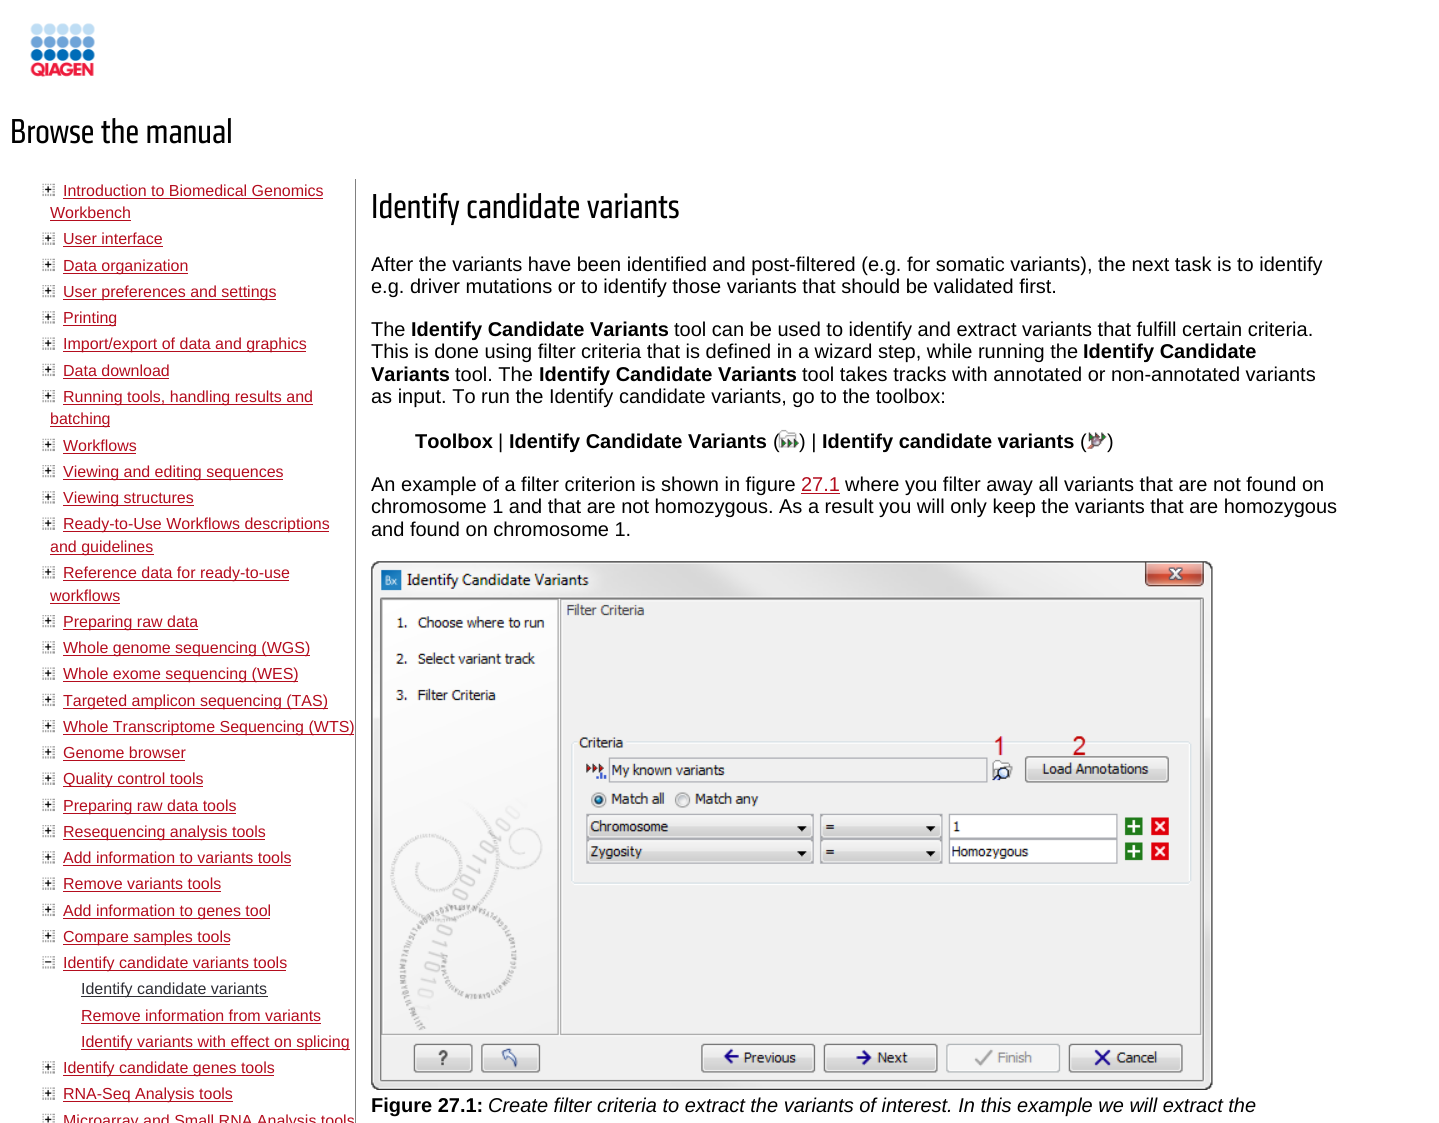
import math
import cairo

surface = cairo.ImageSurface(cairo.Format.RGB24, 1439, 1123)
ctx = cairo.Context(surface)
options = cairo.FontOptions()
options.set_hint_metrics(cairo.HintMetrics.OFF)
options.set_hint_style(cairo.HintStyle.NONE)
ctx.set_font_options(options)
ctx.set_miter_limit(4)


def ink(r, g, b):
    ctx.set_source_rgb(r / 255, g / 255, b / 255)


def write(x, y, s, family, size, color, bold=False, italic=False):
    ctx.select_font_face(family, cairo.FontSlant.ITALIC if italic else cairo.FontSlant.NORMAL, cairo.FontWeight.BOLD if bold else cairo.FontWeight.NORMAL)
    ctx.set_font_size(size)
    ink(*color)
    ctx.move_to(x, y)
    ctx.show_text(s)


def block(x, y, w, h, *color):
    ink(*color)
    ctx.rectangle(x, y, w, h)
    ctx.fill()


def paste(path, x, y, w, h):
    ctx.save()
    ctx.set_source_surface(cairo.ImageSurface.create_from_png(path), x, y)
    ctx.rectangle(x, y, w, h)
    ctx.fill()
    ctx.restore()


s1 = dict(family="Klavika", size=36, color=(0, 0, 0))
s2 = dict(family="Liberation Sans", size=16, color=(180, 13, 30))
s3 = dict(family="Liberation Sans", size=16, color=(46, 46, 53))
s4 = dict(family="Liberation Sans", size=20, color=(0, 0, 0))
s5 = dict(family="Liberation Sans", size=20, color=(0, 0, 0), bold=True)
s6 = dict(family="Liberation Sans", size=20, color=(180, 13, 30))
s7 = dict(family="Liberation Sans", size=20, color=(0, 0, 0), italic=True)

ink(255, 255, 255)
ctx.paint()
paste("pic1.png", 30, 23, 65, 54)
write(10, 143, "Browse the manual", **s1)
block(355, 179, 1, 944, 128, 128, 128)
paste("pic2.png", 42, 183, 13, 14)
write(63, 196, "Introduction to Biomedical Genomics", **s2)
block(63, 198, 260, 1, 180, 13, 30)
write(50, 218, "Workbench", **s2)
block(50, 220, 81, 1, 180, 13, 30)
paste("pic3.png", 42, 232, 13, 13)
write(63, 244, "User interface", **s2)
block(63, 246, 100, 1, 180, 13, 30)
paste("pic2.png", 42, 258, 13, 14)
block(63, 273, 125, 1, 180, 13, 30)
write(63, 271, "Data organization", **s2)
paste("pic4.png", 42, 285, 13, 13)
block(63, 299, 213, 1, 180, 13, 30)
write(63, 297, "User preferences and settings", **s2)
paste("pic5.png", 42, 311, 13, 13)
block(63, 325, 53, 1, 180, 13, 30)
write(63, 323, "Printing", **s2)
paste("pic3.png", 42, 337, 13, 13)
block(63, 351, 243, 1, 180, 13, 30)
write(63, 349, "Import/export of data and graphics", **s2)
paste("pic2.png", 42, 363, 13, 14)
write(63, 376, "Data download", **s2)
block(63, 378, 106, 1, 180, 13, 30)
paste("pic4.png", 42, 390, 13, 13)
block(63, 404, 250, 1, 180, 13, 30)
write(63, 402, "Running tools, handling results and", **s2)
block(50, 426, 60, 1, 180, 13, 30)
write(50, 424, "batching", **s2)
paste("pic2.png", 42, 438, 13, 14)
write(63, 451, "Workflows", **s2)
block(63, 453, 73, 1, 180, 13, 30)
paste("pic4.png", 42, 465, 13, 13)
block(63, 479, 220, 1, 180, 13, 30)
write(63, 477, "Viewing and editing sequences", **s2)
paste("pic5.png", 42, 491, 13, 13)
block(63, 505, 131, 1, 180, 13, 30)
write(63, 503, "Viewing structures", **s2)
paste("pic3.png", 42, 517, 13, 13)
block(63, 531, 266, 1, 180, 13, 30)
write(63, 529, "Ready-to-Use Workflows descriptions", **s2)
block(50, 554, 104, 1, 180, 13, 30)
write(50, 552, "and guidelines", **s2)
paste("pic5.png", 42, 566, 13, 13)
block(63, 580, 226, 1, 180, 13, 30)
write(63, 578, "Reference data for ready-to-use", **s2)
write(50, 601, "workflows", **s2)
block(50, 603, 70, 1, 180, 13, 30)
paste("pic4.png", 42, 615, 13, 13)
block(63, 629, 135, 1, 180, 13, 30)
write(63, 627, "Preparing raw data", **s2)
paste("pic5.png", 42, 641, 13, 13)
block(63, 655, 247, 1, 180, 13, 30)
write(63, 653, "Whole genome sequencing (WGS)", **s2)
paste("pic3.png", 42, 667, 13, 13)
block(63, 681, 235, 1, 180, 13, 30)
write(63, 679, "Whole exome sequencing (WES)", **s2)
paste("pic2.png", 42, 693, 13, 14)
block(63, 708, 265, 1, 180, 13, 30)
write(63, 706, "Targeted amplicon sequencing (TAS)", **s2)
paste("pic4.png", 42, 720, 13, 13)
block(63, 734, 291, 1, 180, 13, 30)
write(63, 732, "Whole Transcriptome Sequencing (WTS)", **s2)
paste("pic5.png", 42, 746, 13, 13)
write(63, 758, "Genome browser", **s2)
block(63, 760, 122, 1, 180, 13, 30)
paste("pic3.png", 42, 772, 13, 13)
block(63, 786, 140, 1, 180, 13, 30)
write(63, 784, "Quality control tools", **s2)
paste("pic2.png", 42, 798, 13, 14)
block(63, 813, 173, 1, 180, 13, 30)
write(63, 811, "Preparing raw data tools", **s2)
paste("pic4.png", 42, 825, 13, 13)
block(63, 839, 202, 1, 180, 13, 30)
write(63, 837, "Resequencing analysis tools", **s2)
paste("pic5.png", 42, 851, 13, 13)
write(63, 863, "Add information to variants tools", **s2)
block(63, 865, 228, 1, 180, 13, 30)
paste("pic3.png", 42, 877, 13, 13)
write(63, 889, "Remove variants tools", **s2)
block(63, 891, 158, 1, 180, 13, 30)
paste("pic2.png", 42, 903, 13, 14)
block(63, 918, 207, 1, 180, 13, 30)
write(63, 916, "Add information to genes tool", **s2)
paste("pic4.png", 42, 930, 13, 13)
block(63, 944, 167, 1, 180, 13, 30)
write(63, 942, "Compare samples tools", **s2)
paste("pic6.png", 42, 956, 13, 13)
block(63, 970, 223, 1, 180, 13, 30)
write(63, 968, "Identify candidate variants tools", **s2)
block(81, 996, 187, 1, 46, 46, 53)
write(81, 994, "Identify candidate variants", **s3)
write(81, 1021, "Remove information from variants", **s2)
block(81, 1023, 240, 1, 180, 13, 30)
block(81, 1049, 269, 1, 180, 13, 30)
write(81, 1047, "Identify variants with effect on splicing", **s2)
paste("pic5.png", 42, 1061, 13, 13)
block(63, 1075, 211, 1, 180, 13, 30)
write(63, 1073, "Identify candidate genes tools", **s2)
paste("pic3.png", 42, 1087, 13, 13)
block(63, 1101, 170, 1, 180, 13, 30)
write(63, 1099, "RNA-Seq Analysis tools", **s2)
paste("pic7.png", 42, 1113, 13, 10)
write(63, 1126, "Microarray and Small RNA Analysis tools", **s2)
write(371, 218, "Identify candidate variants", **s1)
write(371, 271, "After the variants have been identified and post-filtered (e.g. for somatic variants), the next task is to identify", **s4)
write(371, 293, "e.g. driver mutations or to identify those variants that should be validated first.", **s4)
write(371, 336, "The", **s4)
write(411, 336, "Identify Candidate Variants", **s5)
write(674, 336, "tool can be used to identify and extract variants that fulfill certain criteria.", **s4)
write(371, 358, "This is done using filter criteria that is defined in a wizard step, while running the", **s4)
write(1083, 358, "Identify Candidate", **s5)
write(371, 381, "Variants", **s5)
write(455, 381, "tool. The", **s4)
write(539, 381, "Identify Candidate Variants", **s5)
write(802, 381, "tool takes tracks with annotated or non-annotated variants", **s4)
write(371, 403, "as input. To run the Identify candidate variants, go to the toolbox:", **s4)
write(415, 448, "Toolbox", **s5)
write(498, 448, "|", **s4)
write(509, 448, "Identify Candidate Variants", **s5)
write(773, 448, "(", **s4)
paste("pic8.png", 778, 429, 21, 19)
write(799, 448, ") |", **s4)
write(822, 448, "Identify candidate variants", **s5)
write(1080, 448, "(", **s4)
paste("pic9.png", 1087, 432, 20, 17)
write(1107, 448, ")", **s4)
write(371, 491, "An example of a filter criterion is shown in figure", **s4)
write(801, 491, "27.1", **s6)
block(801, 493, 39, 1, 180, 13, 30)
write(845, 491, "where you filter away all variants that are not found on", **s4)
write(371, 513, "chromosome 1 and that are not homozygous. As a result you will only keep the variants that are homozygous", **s4)
write(371, 536, "and found on chromosome 1.", **s4)
paste("pic10.png", 371, 561, 842, 529)
write(371, 1112, "Figure 27.1:", **s5)
write(488, 1112, "Create filter criteria to extract the variants of interest. In this example we will extract the", **s7)
surface.write_to_png("screenshot.png")
